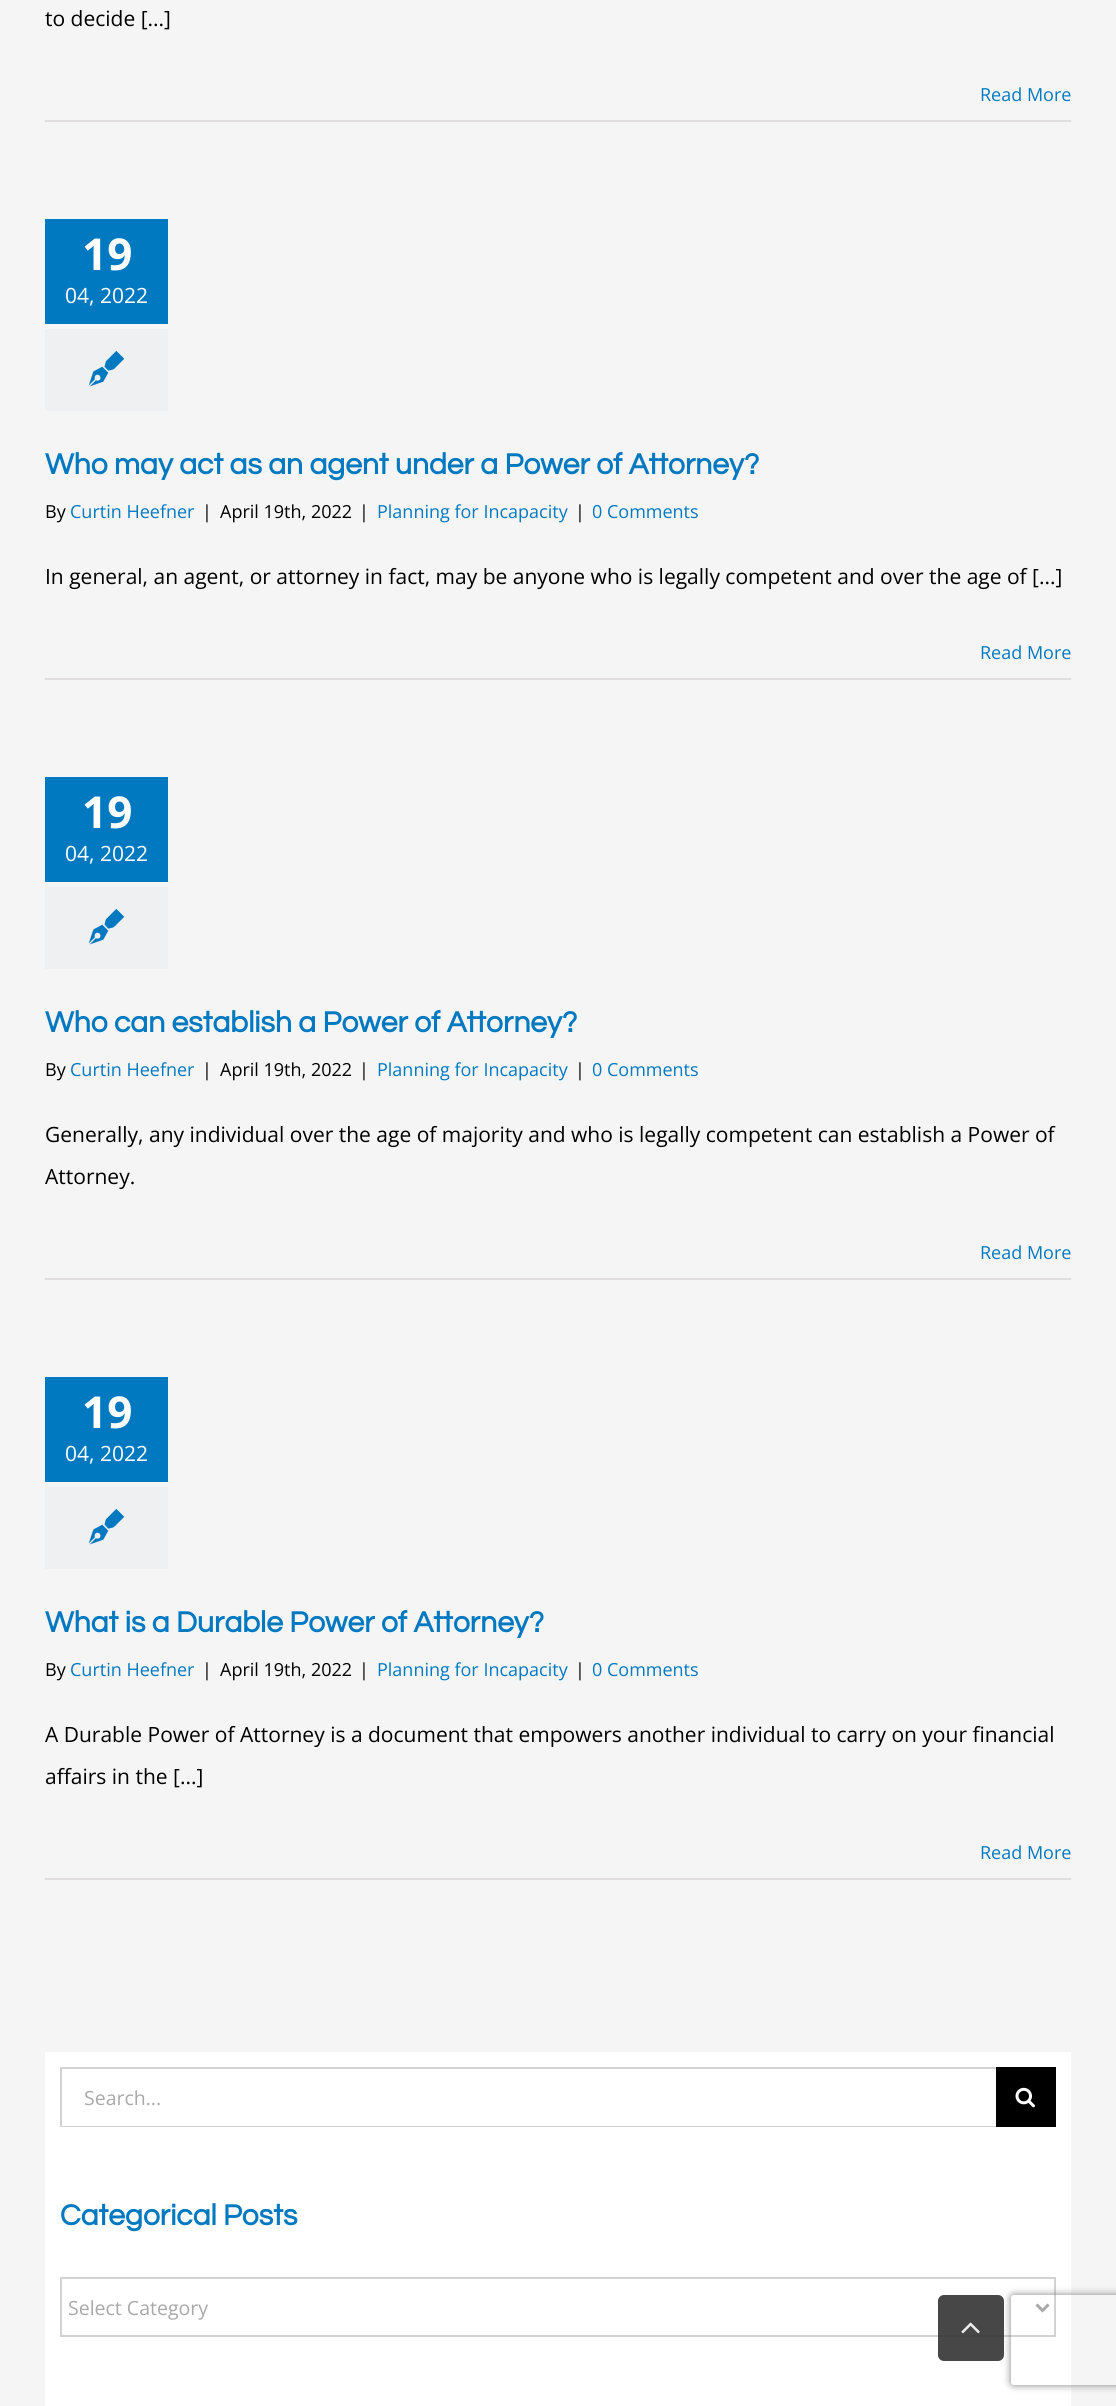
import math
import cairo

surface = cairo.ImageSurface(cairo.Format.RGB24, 1116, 2406)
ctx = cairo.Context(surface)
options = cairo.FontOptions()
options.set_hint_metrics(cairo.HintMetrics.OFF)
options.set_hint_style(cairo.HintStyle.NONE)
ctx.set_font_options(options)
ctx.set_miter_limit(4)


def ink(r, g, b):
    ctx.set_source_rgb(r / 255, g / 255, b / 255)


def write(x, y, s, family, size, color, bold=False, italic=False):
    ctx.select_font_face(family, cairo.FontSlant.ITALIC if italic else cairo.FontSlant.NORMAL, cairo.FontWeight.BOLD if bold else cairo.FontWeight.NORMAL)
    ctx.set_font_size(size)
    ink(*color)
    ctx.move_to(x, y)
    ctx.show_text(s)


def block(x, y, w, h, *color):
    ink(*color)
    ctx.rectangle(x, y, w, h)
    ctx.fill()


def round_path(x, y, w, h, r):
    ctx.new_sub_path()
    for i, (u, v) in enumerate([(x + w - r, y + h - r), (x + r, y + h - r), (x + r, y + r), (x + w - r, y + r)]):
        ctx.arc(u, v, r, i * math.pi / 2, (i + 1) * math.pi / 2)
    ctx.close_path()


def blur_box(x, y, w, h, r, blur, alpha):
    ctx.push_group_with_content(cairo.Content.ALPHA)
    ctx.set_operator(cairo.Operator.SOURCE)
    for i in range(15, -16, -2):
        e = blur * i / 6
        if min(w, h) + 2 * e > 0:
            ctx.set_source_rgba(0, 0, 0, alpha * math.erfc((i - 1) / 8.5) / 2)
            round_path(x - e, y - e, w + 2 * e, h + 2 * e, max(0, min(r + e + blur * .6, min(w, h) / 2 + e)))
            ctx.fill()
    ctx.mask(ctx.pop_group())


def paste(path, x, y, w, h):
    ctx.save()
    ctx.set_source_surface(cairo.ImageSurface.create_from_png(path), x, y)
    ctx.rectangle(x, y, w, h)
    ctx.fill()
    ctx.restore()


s1 = dict(family="Open Sans", size=21, color=(0, 0, 0))
s2 = dict(family="Open Sans", size=18, color=(0, 121, 193))
s3 = dict(family="Open Sans", size=44, color=(255, 255, 255), bold=True)
s4 = dict(family="Open Sans", size=21, color=(255, 255, 255))
s5 = dict(family="Questrial", size=30, color=(0, 121, 193), bold=True)
s6 = dict(family="Open Sans", size=18, color=(0, 0, 0))
s7 = dict(family="Open Sans", size=19.5, color=(170, 169, 169))

ink(245, 245, 245)
ctx.paint()
write(45, 26, "to decide [...]", **s1)
block(45, 120, 1026, 2, 224, 222, 222)
write(980, 101, "Read More", **s2)
block(45, 219, 123, 105, 0, 121, 193)
write(82, 270, "19", **s3)
write(65, 303, "04, 2022", **s4)
block(45, 329, 123, 82, 238, 240, 242)
paste("pic1.png", 88, 350, 37, 37)
write(45, 474, "Who may act as an agent under a Power of Attorney?", **s5)
write(45, 518, "By", **s6)
write(70, 518, "Curtin Heefner", **s2)
write(202, 518, "|", **s6)
write(220, 518, "April 19th, 2022", **s6)
write(359, 518, "|", **s6)
write(377, 518, "Planning for Incapacity", **s2)
write(575, 518, "|", **s6)
write(592, 518, "0 Comments", **s2)
write(45, 584, "In general, an agent, or attorney in fact, may be anyone who is legally competent and over the age of [...]", **s1)
block(45, 678, 1026, 2, 224, 222, 222)
write(980, 659, "Read More", **s2)
block(45, 777, 123, 105, 0, 121, 193)
write(82, 828, "19", **s3)
write(65, 861, "04, 2022", **s4)
block(45, 887, 123, 82, 238, 240, 242)
paste("pic1.png", 88, 908, 37, 37)
write(45, 1032, "Who can establish a Power of Attorney?", **s5)
write(45, 1076, "By", **s6)
write(70, 1076, "Curtin Heefner", **s2)
write(202, 1076, "|", **s6)
write(220, 1076, "April 19th, 2022", **s6)
write(359, 1076, "|", **s6)
write(377, 1076, "Planning for Incapacity", **s2)
write(575, 1076, "|", **s6)
write(592, 1076, "0 Comments", **s2)
write(45, 1142, "Generally, any individual over the age of majority and who is legally competent can establish a Power of", **s1)
write(45, 1184, "Attorney.", **s1)
block(45, 1278, 1026, 2, 224, 222, 222)
write(980, 1259, "Read More", **s2)
block(45, 1377, 123, 105, 0, 121, 193)
write(82, 1428, "19", **s3)
write(65, 1461, "04, 2022", **s4)
block(45, 1487, 123, 82, 238, 240, 242)
paste("pic1.png", 88, 1508, 37, 37)
write(45, 1632, "What is a Durable Power of Attorney?", **s5)
write(45, 1676, "By", **s6)
write(70, 1676, "Curtin Heefner", **s2)
write(202, 1676, "|", **s6)
write(220, 1676, "April 19th, 2022", **s6)
write(359, 1676, "|", **s6)
write(377, 1676, "Planning for Incapacity", **s2)
write(575, 1676, "|", **s6)
write(592, 1676, "0 Comments", **s2)
write(45, 1742, "A Durable Power of Attorney is a document that empowers another individual to carry on your financial", **s1)
write(45, 1784, "affairs in the [...]", **s1)
block(45, 1878, 1026, 2, 224, 222, 222)
write(980, 1859, "Read More", **s2)
block(45, 2052, 1026, 354, 255, 255, 255)
block(60, 2067, 936, 2, 210, 210, 210)
block(60, 2126, 936, 1, 210, 210, 210)
block(60, 2067, 2, 60, 210, 210, 210)
write(84, 2105, "Search...", **s7)
block(996, 2067, 60, 60, 0, 0, 0)
paste("pic2.png", 1015, 2087, 20, 21)
write(60, 2225, "Categorical Posts", **s5)
ctx.rectangle(61, 2278, 994, 58)
ink(210, 210, 210)
ctx.stroke()
ctx.new_path()
ctx.move_to(1036.5, 2304.5)
ctx.line_to(1042.5, 2310.5)
ctx.line_to(1048.5, 2304.5)
ink(170, 169, 169)
ctx.set_line_width(3)
ctx.stroke()
write(68, 2315, "Select Category", **s7)
ctx.save()
ctx.set_fill_rule(cairo.FillRule.EVEN_ODD)
ctx.new_path()
ctx.move_to(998, 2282)
ctx.line_to(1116, 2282)
ctx.line_to(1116, 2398)
ctx.line_to(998, 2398)
ctx.close_path()
ctx.move_to(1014, 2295)
ctx.line_to(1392, 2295)
ctx.curve_to(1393.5, 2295, 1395, 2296.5, 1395, 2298)
ctx.line_to(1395, 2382)
ctx.curve_to(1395, 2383.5, 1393.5, 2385, 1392, 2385)
ctx.line_to(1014, 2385)
ctx.curve_to(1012.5, 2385, 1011, 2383.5, 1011, 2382)
ctx.line_to(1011, 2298)
ctx.curve_to(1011, 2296.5, 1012.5, 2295, 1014, 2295)
ctx.close_path()
ctx.clip()
ink(128, 128, 128)
blur_box(1011, 2295, 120, 90, 3, 4, 1)
ctx.restore()
ctx.set_source_rgba(0.2, 0.2, 0.2, 0.9)
round_path(938, 2295, 66, 66, 6)
ctx.fill()
paste("pic3.png", 961, 2322, 19, 12)
surface.write_to_png("screenshot.png")
